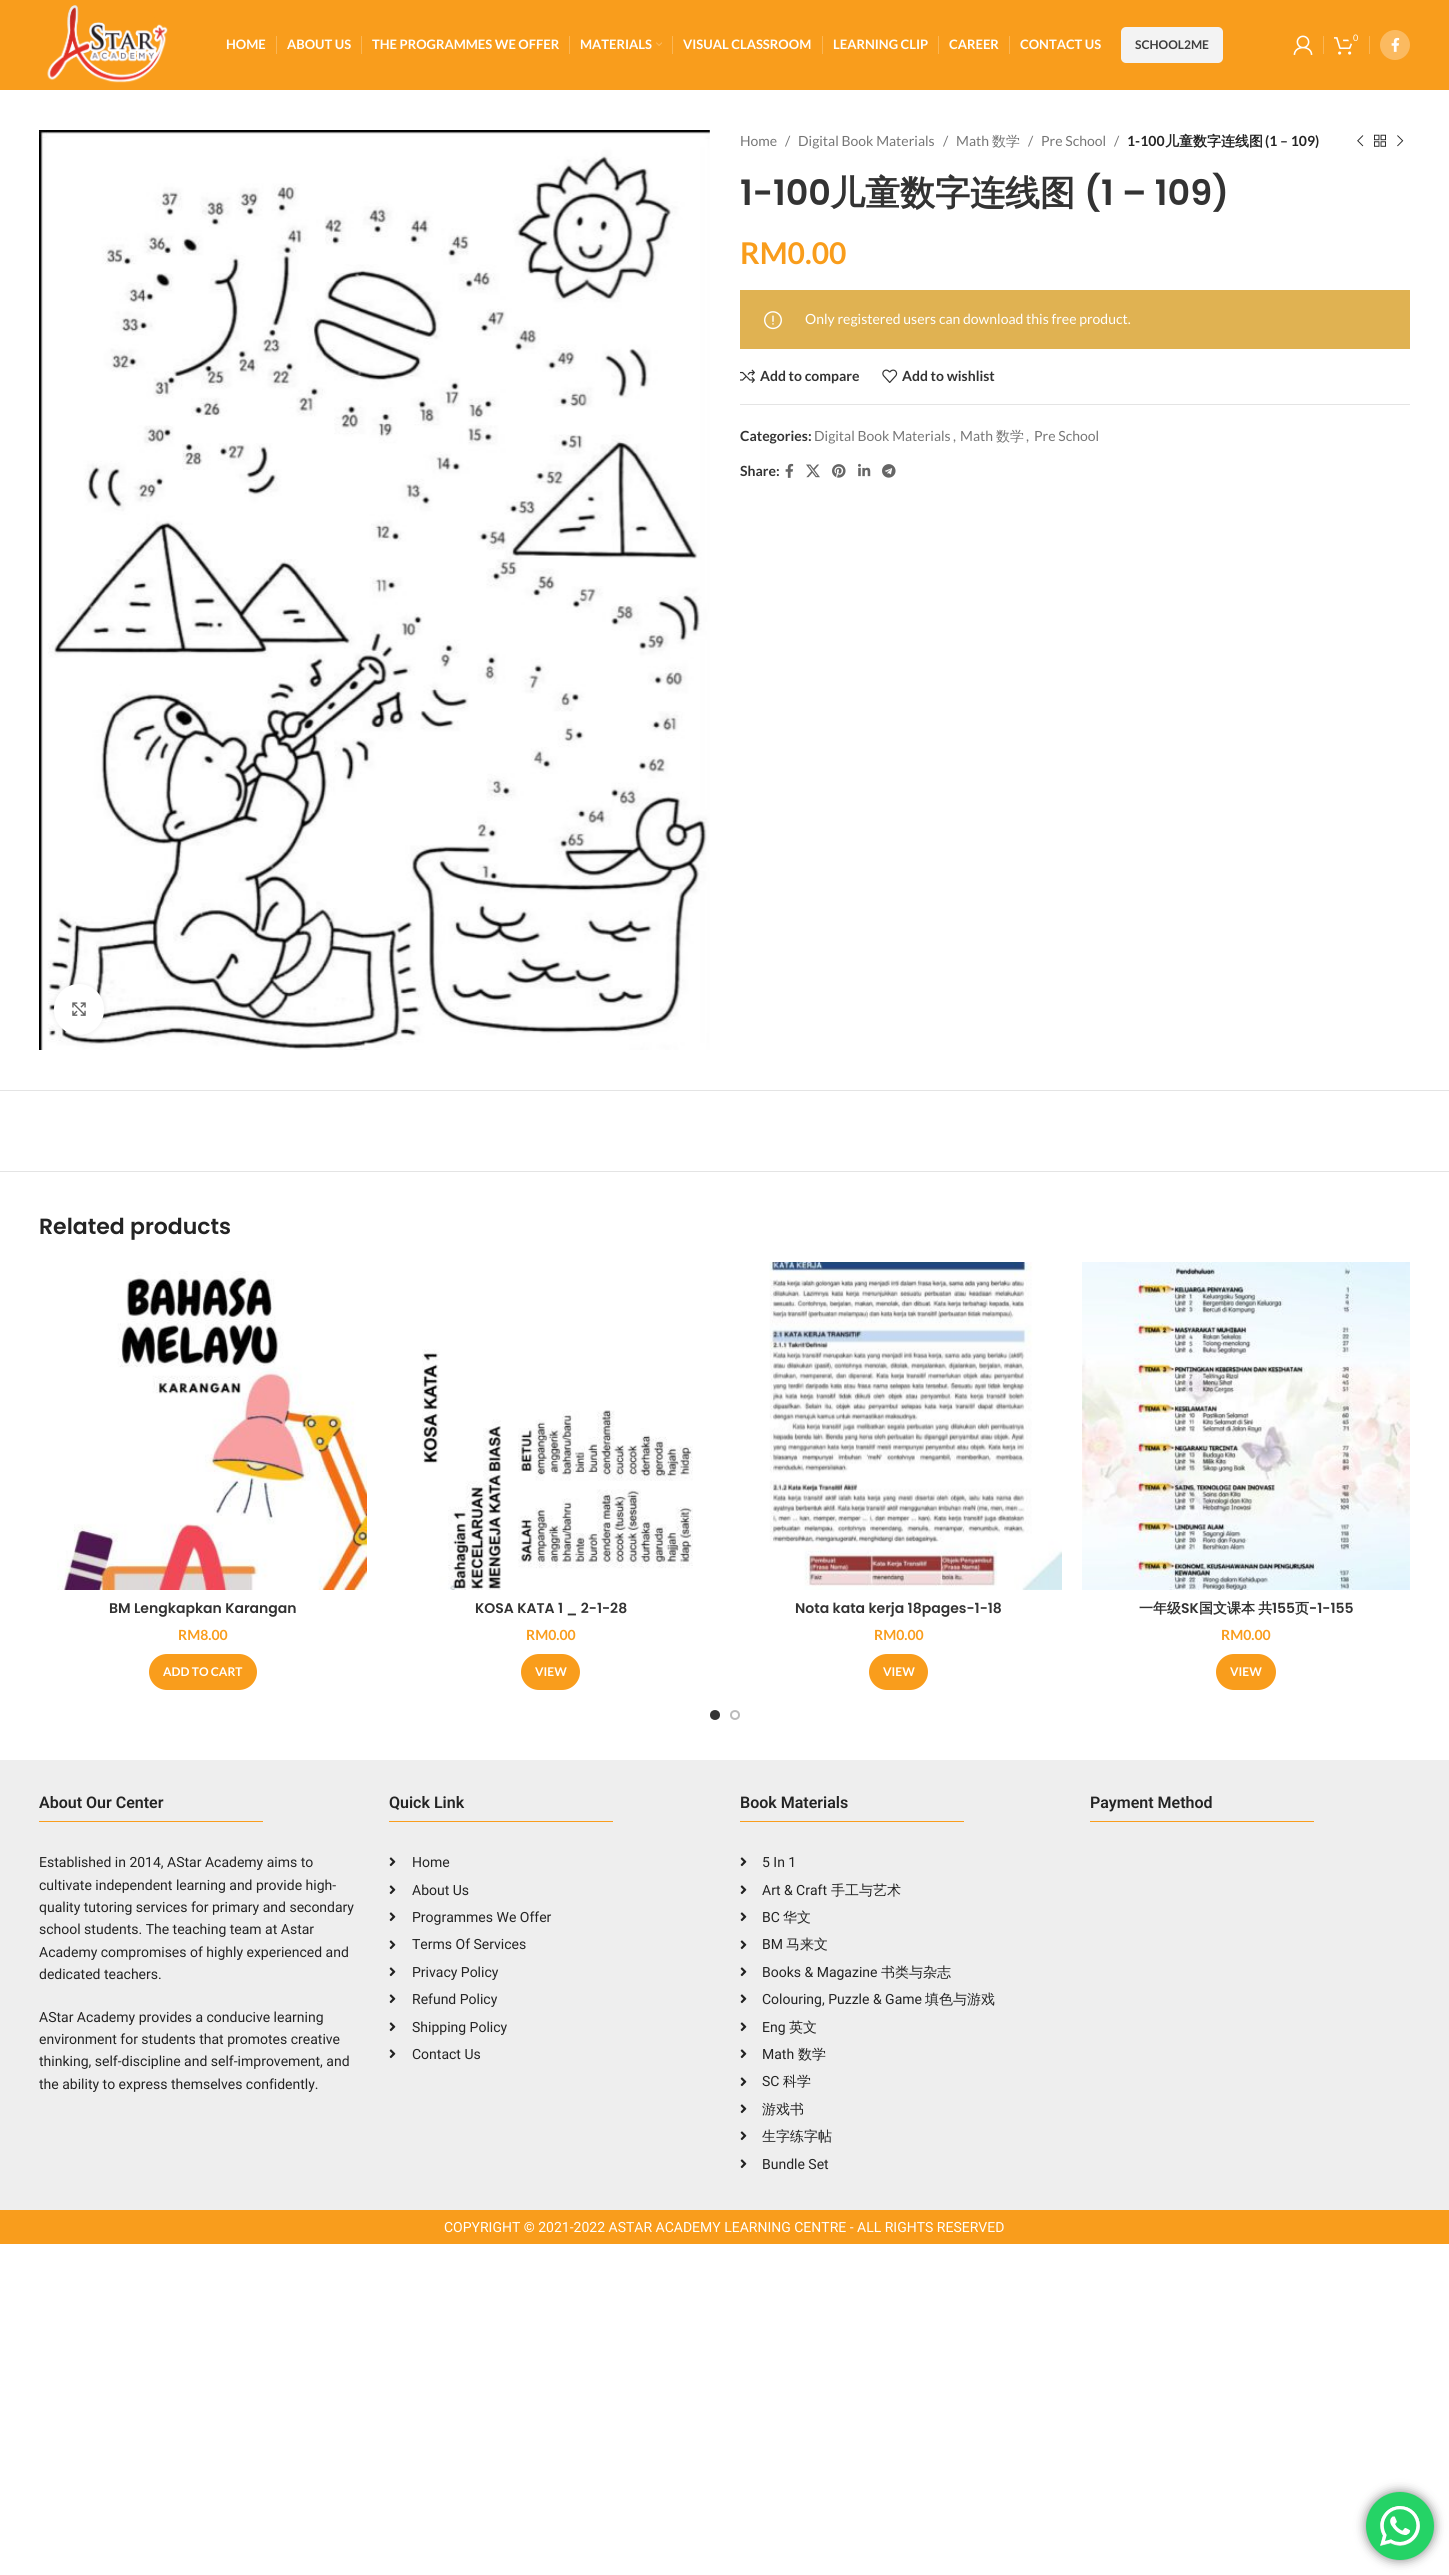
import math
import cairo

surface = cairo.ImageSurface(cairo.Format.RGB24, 1449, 2575)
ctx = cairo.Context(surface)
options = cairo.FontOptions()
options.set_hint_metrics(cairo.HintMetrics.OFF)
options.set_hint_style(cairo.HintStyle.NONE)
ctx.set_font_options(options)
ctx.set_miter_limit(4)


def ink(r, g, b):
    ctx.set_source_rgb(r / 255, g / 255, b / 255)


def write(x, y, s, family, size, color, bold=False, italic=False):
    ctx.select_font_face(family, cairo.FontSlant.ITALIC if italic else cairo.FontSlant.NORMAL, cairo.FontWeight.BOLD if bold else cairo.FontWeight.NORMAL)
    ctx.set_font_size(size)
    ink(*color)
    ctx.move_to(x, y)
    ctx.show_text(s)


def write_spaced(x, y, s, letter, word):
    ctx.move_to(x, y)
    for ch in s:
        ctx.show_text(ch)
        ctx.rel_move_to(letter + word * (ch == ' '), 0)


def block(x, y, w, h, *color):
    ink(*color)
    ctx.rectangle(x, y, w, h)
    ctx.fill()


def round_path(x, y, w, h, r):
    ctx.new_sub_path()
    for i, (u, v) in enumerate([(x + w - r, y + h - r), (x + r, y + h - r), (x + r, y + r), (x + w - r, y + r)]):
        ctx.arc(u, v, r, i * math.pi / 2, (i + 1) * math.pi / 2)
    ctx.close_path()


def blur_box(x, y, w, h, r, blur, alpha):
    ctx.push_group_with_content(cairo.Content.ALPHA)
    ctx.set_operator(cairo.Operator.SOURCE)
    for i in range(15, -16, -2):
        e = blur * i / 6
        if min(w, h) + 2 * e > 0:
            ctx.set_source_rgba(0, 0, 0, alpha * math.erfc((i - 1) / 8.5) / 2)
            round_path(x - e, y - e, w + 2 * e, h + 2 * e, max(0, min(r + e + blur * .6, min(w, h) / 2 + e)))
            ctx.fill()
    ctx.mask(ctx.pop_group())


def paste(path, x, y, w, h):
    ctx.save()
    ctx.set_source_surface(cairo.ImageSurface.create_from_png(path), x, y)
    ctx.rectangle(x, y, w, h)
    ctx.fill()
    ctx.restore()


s1 = dict(family="Lato", size=9, color=(255, 255, 255))
s2 = dict(family="Lato", size=13, color=(255, 255, 255), bold=True)
s3 = dict(family="Lato", size=12, color=(62, 62, 62), bold=True)
s4 = dict(family="Lato", size=14, color=(118, 118, 118))
s5 = dict(family="WenQuanYi Zen Hei Medium", size=14, color=(118, 118, 118))
s6 = dict(family="Lato", size=14, color=(36, 36, 36), bold=True)
s7 = dict(family="WenQuanYi Zen Hei", size=14, color=(36, 36, 36), bold=True)
s8 = dict(family="Poppins SemiBold", size=35, color=(51, 51, 51))
s9 = dict(family="WenQuanYi Zen Hei", size=35, color=(51, 51, 51), bold=True)
s10 = dict(family="Lato", size=30, color=(249, 157, 28), bold=True)
s11 = dict(family="Lato", size=14, color=(255, 255, 255))
s12 = dict(family="Lato", size=14, color=(51, 51, 51), bold=True)
s13 = dict(family="Poppins SemiBold", size=22, color=(36, 36, 36))
s14 = dict(family="Poppins SemiBold", size=14, color=(51, 51, 51))
s15 = dict(family="Lato", size=14, color=(249, 157, 28), bold=True)
s16 = dict(family="Lato", size=12, color=(255, 255, 255), bold=True)
s17 = dict(family="WenQuanYi Zen Hei", size=14, color=(51, 51, 51), bold=True)
s18 = dict(family="Roboto SemiBold", size=16, color=(36, 36, 36))
s19 = dict(family="Roboto", size=14, color=(36, 36, 36))
s20 = dict(family="WenQuanYi Zen Hei Medium", size=14, color=(36, 36, 36))
s21 = dict(family="Roboto", size=14, color=(255, 255, 255))

ink(255, 255, 255)
ctx.paint()
block(0, 0, 1449, 90, 249, 157, 28)
paste("pic1.png", 47, 5, 121, 78)
paste("pic2.png", 1293, 35, 20, 20)
block(1323, 36, 1, 18, 251, 182, 85)
paste("pic3.png", 1334, 37, 19, 18)
ink(249, 157, 28)
ctx.arc(1355.5, 37.5, 7.5, 0, 2 * math.pi)
ctx.fill()
write(1353, 41, "0", **s1)
block(1369, 36, 1, 18, 251, 182, 85)
ink(251, 186, 96)
ctx.new_path()
ctx.arc(1395, 45, 15, 0, 2 * math.pi)
ctx.fill()
paste("pic4.png", 1391, 37, 9, 15)
write(226, 49, "HOME", **s2)
block(276, 36, 1, 18, 251, 182, 85)
write(287, 49, "ABOUT US", **s2)
block(361, 36, 1, 18, 251, 182, 85)
write(372, 49, "THE PROGRAMMES WE OFFER", **s2)
block(569, 36, 1, 18, 251, 182, 85)
write(580, 49, "MATERIALS", **s2)
paste("pic5.png", 656, 42, 6, 4)
block(672, 36, 1, 18, 251, 182, 85)
write(683, 49, "VISUAL CLASSROOM", **s2)
block(822, 36, 1, 18, 251, 182, 85)
write(833, 49, "LEARNING CLIP", **s2)
block(938, 36, 1, 18, 251, 182, 85)
write(949, 49, "CAREER", **s2)
block(1009, 36, 1, 18, 251, 182, 85)
write(1020, 49, "CONTACT US", **s2)
ink(243, 243, 243)
round_path(1121, 27, 102, 36, 5)
ctx.fill()
write(1135, 49, "SCHOOL2ME", **s3)
paste("pic6.png", 39, 130, 671, 920)
ink(0, 0, 0)
blur_box(54, 984, 50, 51, 25, 2.5, 0.08)
ink(255, 255, 255)
round_path(54, 984, 50, 51, 25)
ctx.fill()
paste("pic7.png", 72, 1002, 14, 14)
write(740, 146, "Home", **s4)
write(785, 146, "/", **s4)
write(798, 146, "Digital Book Materials", **s4)
write(943, 146, "/", **s4)
write(956, 146, "Math", **s4)
write(992, 146, "数学", **s5)
write(1028, 146, "/", **s4)
write(1041, 146, "Pre School", **s4)
write(1114, 146, "/", **s4)
write(1127, 146, "1-100", **s6)
write(1165, 146, "儿童数字连线图", **s7)
write(1265, 146, "(1 – 109)", **s6)
paste("pic8.png", 1357, 135, 7, 12)
paste("pic9.png", 1374, 134, 12, 13)
paste("pic10.png", 1397, 135, 7, 12)
write(740, 205, "1-100", **s8)
write(830, 205, "儿童数字连线图", **s9)
write(1084, 205, "(1 – 109)", **s8)
write(740, 264, "RM0.00", **s10)
block(740, 290, 670, 59, 224, 178, 82)
paste("pic11.png", 764, 311, 18, 19)
write(805, 324, "Only registered users can download this free product.", **s11)
paste("pic12.png", 740, 369, 15, 14)
write(760, 381, "Add to compare", **s12)
paste("pic13.png", 882, 369, 16, 14)
write(902, 381, "Add to wishlist", **s12)
block(740, 404, 670, 1, 228, 228, 228)
write(740, 441, "Categories:", **s12)
write(814, 441, "Digital Book Materials", **s4)
write(953, 441, ",", **s4)
write(960, 441, "Math", **s4)
write(996, 441, "数学", **s5)
write(1026, 441, ",", **s4)
write(1034, 441, "Pre School", **s4)
write(740, 476, "Share:", **s12)
paste("pic14.png", 785, 463, 9, 15)
paste("pic15.png", 806, 464, 14, 14)
paste("pic16.png", 832, 464, 14, 14)
paste("pic17.png", 858, 463, 13, 14)
paste("pic18.png", 882, 464, 14, 14)
block(0, 1090, 1449, 1, 228, 228, 228)
block(0, 1171, 1449, 1, 228, 228, 228)
write(39, 1234, "Related products", **s13)
paste("pic19.png", 57, 1271, 310, 319)
write(109, 1613, "BM Lengkapkan Karangan", **s14)
write(178, 1640, "RM8.00", **s15)
round_path(149, 1654, 108, 36, 18)
ctx.fill()
write(163, 1676, "ADD TO CART", **s16)
paste("pic20.png", 422, 1349, 271, 241)
write(475, 1613, "KOSA KATA 1 _ 2-1-28", **s14)
write(526, 1640, "RM0.00", **s15)
round_path(521, 1654, 59, 36, 18)
ctx.fill()
write(535, 1676, "VIEW", **s16)
paste("pic21.png", 769, 1262, 293, 328)
write(795, 1613, "Nota kata kerja 18pages-1-18", **s14)
write(874, 1640, "RM0.00", **s15)
round_path(869, 1654, 59, 36, 18)
ctx.fill()
write(883, 1676, "VIEW", **s16)
paste("pic22.png", 1082, 1262, 328, 328)
write(1139, 1613, "一年级", **s17)
write(1181, 1613, "SK", **s14)
ctx.select_font_face("WenQuanYi Zen Hei", cairo.FontSlant.NORMAL, cairo.FontWeight.BOLD)
write_spaced(1199, 1613, "国文课本 共", 0, -1)
write(1272, 1613, "155", **s14)
write(1295, 1613, "页", **s17)
write(1309, 1613, "-1-155", **s14)
write(1221, 1640, "RM0.00", **s15)
round_path(1216, 1654, 60, 36, 18)
ctx.fill()
write(1230, 1676, "VIEW", **s16)
ink(51, 51, 51)
ctx.new_path()
ctx.arc(715, 1715, 4, 0, 2 * math.pi)
ctx.fill_preserve()
ctx.stroke()
ctx.arc(735, 1715, 4, 0, 2 * math.pi)
ink(187, 187, 187)
ctx.stroke()
block(0, 1760, 1449, 450, 238, 238, 238)
write(39, 1808, "About Our Center", **s18)
block(39, 1821, 224, 1, 249, 157, 28)
write(39, 1867, "Established in 2014, AStar Academy aims to", **s19)
write(39, 1890, "cultivate independent learning and provide high-", **s19)
write(39, 1912, "quality tutoring services for primary and secondary", **s19)
write(39, 1934, "school students. The teaching team at Astar", **s19)
write(39, 1957, "Academy compromises of highly experienced and", **s19)
write(39, 1979, "dedicated teachers.", **s19)
write(39, 2022, "AStar Academy provides a conducive learning", **s19)
write(39, 2044, "environment for students that promotes creative", **s19)
write(39, 2066, "thinking, self-discipline and self-improvement, and", **s19)
write(39, 2089, "the ability to express themselves confidently.", **s19)
write(389, 1808, "Quick Link", **s18)
block(389, 1821, 224, 1, 249, 157, 28)
paste("pic23.png", 389, 1857, 7, 10)
write(412, 1867, "Home", **s19)
paste("pic23.png", 389, 1885, 7, 10)
write(412, 1895, "About Us", **s19)
paste("pic23.png", 389, 1912, 7, 10)
write(412, 1922, "Programmes We Offer", **s19)
paste("pic23.png", 389, 1940, 7, 10)
write(412, 1949, "Terms Of Services", **s19)
paste("pic23.png", 389, 1967, 7, 10)
write(412, 1977, "Privacy Policy", **s19)
paste("pic23.png", 389, 1994, 7, 10)
write(412, 2004, "Refund Policy", **s19)
paste("pic23.png", 389, 2022, 7, 10)
write(412, 2032, "Shipping Policy", **s19)
paste("pic23.png", 389, 2049, 7, 10)
write(412, 2059, "Contact Us", **s19)
write(740, 1808, "Book Materials", **s18)
block(740, 1821, 224, 1, 249, 157, 28)
paste("pic23.png", 740, 1857, 7, 10)
write(762, 1867, "5 In 1", **s19)
paste("pic23.png", 740, 1885, 7, 10)
write(762, 1895, "Art & Craft", **s19)
write(831, 1895, "手工与艺术", **s20)
paste("pic23.png", 740, 1912, 7, 10)
write(762, 1922, "BC", **s19)
write(783, 1922, "华文", **s20)
paste("pic23.png", 740, 1940, 7, 10)
write(762, 1949, "BM", **s19)
write(786, 1949, "马来文", **s20)
paste("pic23.png", 740, 1967, 7, 10)
write(762, 1977, "Books & Magazine", **s19)
write(881, 1977, "书类与杂志", **s20)
paste("pic23.png", 740, 1994, 7, 10)
write(762, 2004, "Colouring, Puzzle & Game", **s19)
write(925, 2004, "填色与游戏", **s20)
paste("pic23.png", 740, 2022, 7, 10)
write(762, 2032, "Eng", **s19)
write(789, 2032, "英文", **s20)
paste("pic23.png", 740, 2049, 7, 10)
write(762, 2059, "Math", **s19)
write(798, 2059, "数学", **s20)
paste("pic23.png", 740, 2077, 7, 10)
write(762, 2086, "SC", **s19)
write(783, 2086, "科学", **s20)
paste("pic23.png", 740, 2104, 7, 10)
write(762, 2114, "游戏书", **s20)
paste("pic23.png", 740, 2131, 7, 10)
write(762, 2141, "生字练字帖", **s20)
paste("pic23.png", 740, 2159, 7, 10)
write(762, 2169, "Bundle Set", **s19)
write(1090, 1808, "Payment Method", **s18)
block(1090, 1821, 224, 1, 249, 157, 28)
block(0, 2210, 1449, 34, 249, 157, 28)
write(444, 2232, "COPYRIGHT © 2021-2022 ASTAR ACADEMY LEARNING CENTRE - ALL RIGHTS RESERVED", **s21)
ink(0, 0, 0)
blur_box(1366, 2492, 68, 68, 34, 5.5, 0.5)
ink(37, 211, 102)
ctx.arc(1400, 2526, 34, 0, 2 * math.pi)
ctx.fill()
paste("pic24.png", 1380, 2506, 40, 40)
surface.write_to_png("screenshot.png")
